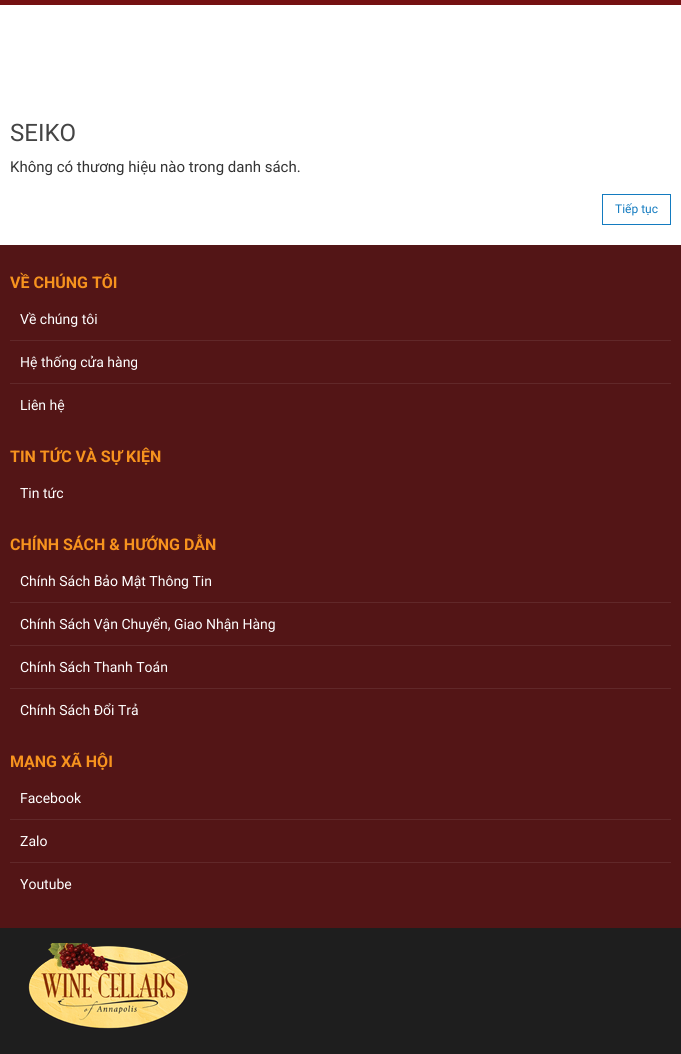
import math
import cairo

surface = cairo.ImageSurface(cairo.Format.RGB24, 681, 1054)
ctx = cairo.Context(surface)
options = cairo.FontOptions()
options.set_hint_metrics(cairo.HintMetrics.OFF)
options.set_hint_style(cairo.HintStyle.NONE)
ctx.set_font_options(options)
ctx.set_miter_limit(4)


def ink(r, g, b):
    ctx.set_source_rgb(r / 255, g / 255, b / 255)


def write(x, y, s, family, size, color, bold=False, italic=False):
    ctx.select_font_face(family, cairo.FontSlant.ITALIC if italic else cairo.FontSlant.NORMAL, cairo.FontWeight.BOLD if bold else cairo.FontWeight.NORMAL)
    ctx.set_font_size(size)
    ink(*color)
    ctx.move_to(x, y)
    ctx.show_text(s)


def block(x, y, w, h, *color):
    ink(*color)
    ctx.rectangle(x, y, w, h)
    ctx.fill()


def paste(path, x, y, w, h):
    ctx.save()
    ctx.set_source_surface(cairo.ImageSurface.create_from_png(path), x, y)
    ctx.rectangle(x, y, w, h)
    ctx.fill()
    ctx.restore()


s1 = dict(family="Roboto", size=24, color=(68, 68, 68))
s2 = dict(family="Roboto", size=15, color=(51, 51, 51))
s3 = dict(family="Roboto", size=12, color=(19, 123, 192))
s4 = dict(family="Roboto", size=16, color=(247, 147, 30), bold=True)
s5 = dict(family="Roboto", size=14, color=(255, 255, 255))

ink(255, 255, 255)
ctx.paint()
block(0, 0, 681, 5, 117, 17, 18)
write(10, 141, "SEIKO", **s1)
write(10, 172, "Không có thương hiệu nào trong danh sách.", **s2)
ctx.rectangle(602.5, 194.5, 68, 30)
ink(19, 123, 192)
ctx.set_line_width(1)
ctx.stroke()
write(615, 213, "Tiếp tục", **s3)
block(0, 245, 681, 683, 83, 21, 22)
write(10, 288, "VỀ CHÚNG TÔI", **s4)
block(10, 340, 661, 1, 97, 40, 41)
write(20, 324, "Về chúng tôi", **s5)
block(10, 383, 661, 1, 97, 40, 41)
write(20, 367, "Hệ thống cửa hàng", **s5)
write(20, 410, "Liên hệ", **s5)
write(10, 462, "TIN TỨC VÀ SỰ KIỆN", **s4)
write(20, 498, "Tin tức", **s5)
write(10, 550, "CHÍNH SÁCH & HƯỚNG DẪN", **s4)
block(10, 602, 661, 1, 97, 40, 41)
write(20, 586, "Chính Sách Bảo Mật Thông Tin", **s5)
block(10, 645, 661, 1, 97, 40, 41)
write(20, 629, "Chính Sách Vận Chuyển, Giao Nhận Hàng", **s5)
block(10, 688, 661, 1, 97, 40, 41)
write(20, 672, "Chính Sách Thanh Toán", **s5)
write(20, 715, "Chính Sách Đổi Trả", **s5)
write(10, 767, "MẠNG XÃ HỘI", **s4)
block(10, 819, 661, 1, 97, 40, 41)
write(20, 803, "Facebook", **s5)
block(10, 862, 661, 1, 97, 40, 41)
write(20, 846, "Zalo", **s5)
write(20, 889, "Youtube", **s5)
block(0, 928, 681, 126, 30, 30, 30)
paste("pic1.png", 28, 943, 160, 86)
surface.write_to_png("screenshot.png")
